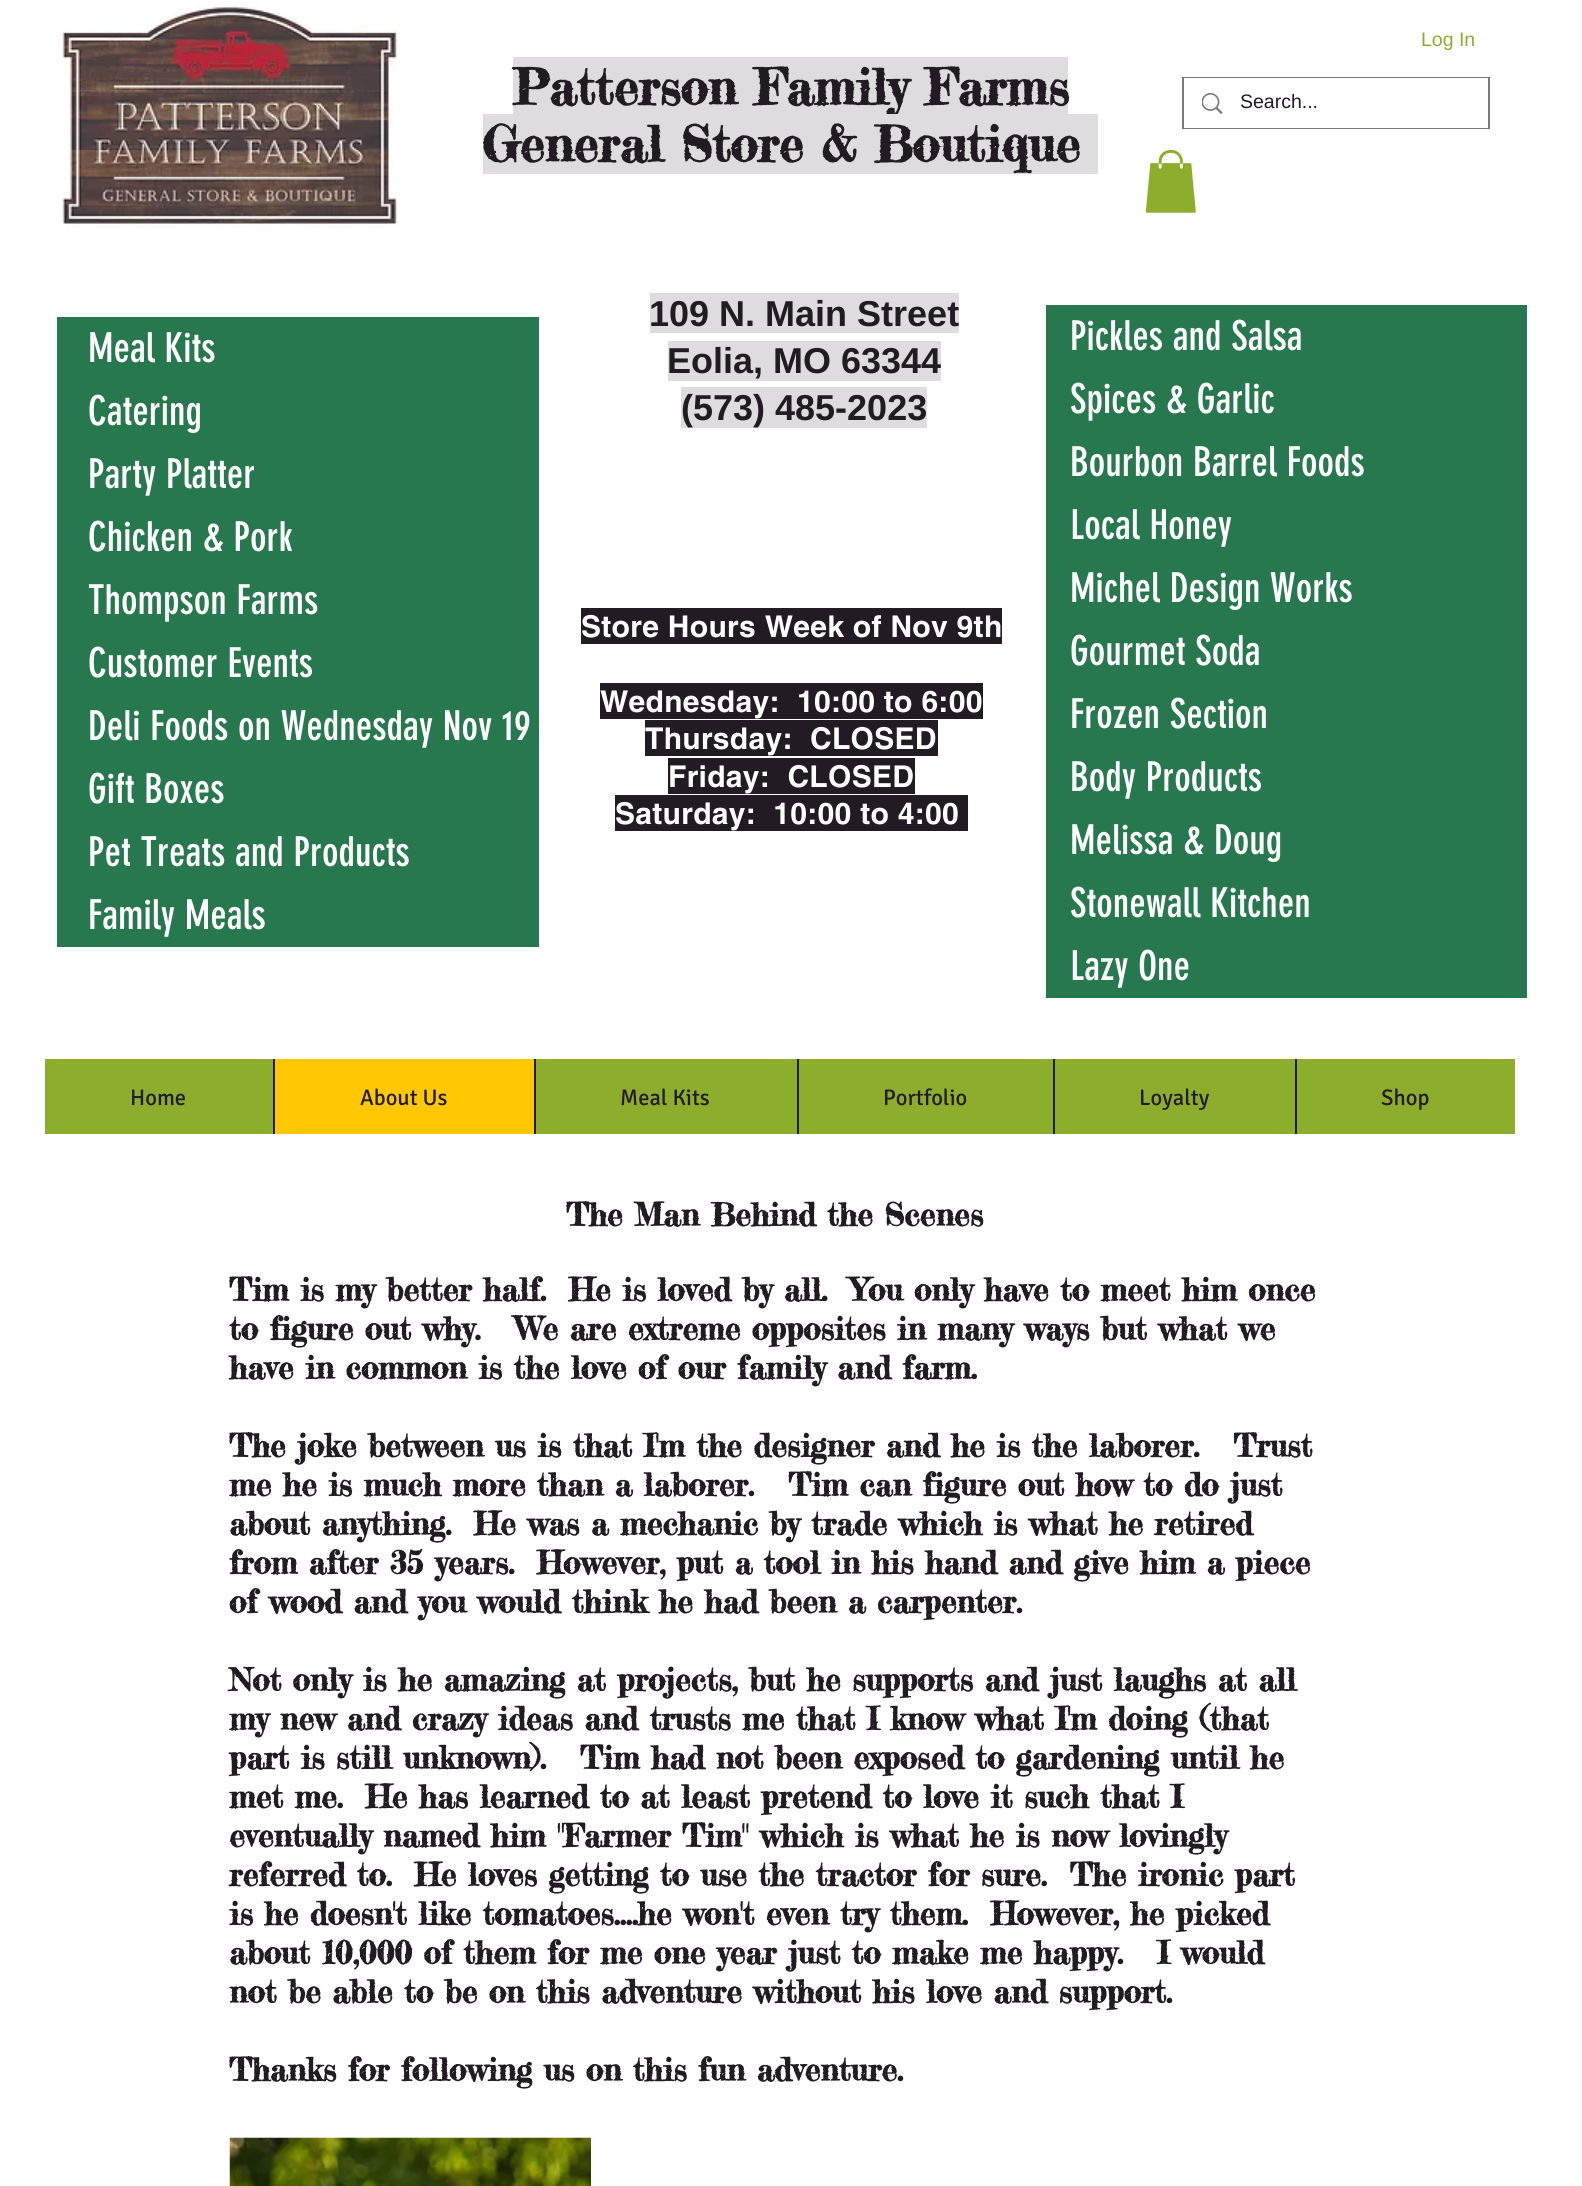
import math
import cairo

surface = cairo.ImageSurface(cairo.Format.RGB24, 1582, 2186)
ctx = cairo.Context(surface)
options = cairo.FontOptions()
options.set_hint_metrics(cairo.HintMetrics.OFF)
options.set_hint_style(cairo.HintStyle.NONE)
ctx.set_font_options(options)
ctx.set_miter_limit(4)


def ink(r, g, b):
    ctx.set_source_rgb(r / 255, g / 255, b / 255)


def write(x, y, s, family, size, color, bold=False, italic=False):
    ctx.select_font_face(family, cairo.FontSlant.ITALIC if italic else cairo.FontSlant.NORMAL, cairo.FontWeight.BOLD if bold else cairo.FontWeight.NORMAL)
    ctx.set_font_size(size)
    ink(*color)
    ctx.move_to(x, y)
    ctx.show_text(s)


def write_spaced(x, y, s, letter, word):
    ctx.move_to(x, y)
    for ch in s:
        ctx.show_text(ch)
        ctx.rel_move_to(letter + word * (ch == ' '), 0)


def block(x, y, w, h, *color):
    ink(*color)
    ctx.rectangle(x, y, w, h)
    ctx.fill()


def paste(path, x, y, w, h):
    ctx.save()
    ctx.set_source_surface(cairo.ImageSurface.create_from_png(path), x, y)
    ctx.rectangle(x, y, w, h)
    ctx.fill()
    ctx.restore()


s1 = dict(family="Liberation Sans", size=19.5, color=(141, 173, 45))
s2 = dict(family="Fredericka the Great", size=49.5, color=(34, 27, 35), bold=True)
s3 = dict(family="Liberation Sans", size=19.5, color=(34, 27, 35))
s4 = dict(family="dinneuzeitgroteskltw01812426", size=40.5, color=(255, 255, 255))
s5 = dict(family="Liberation Sans", size=36, color=(34, 27, 35), bold=True)
s6 = dict(family="Signika", size=22.5, color=(34, 27, 35))
s7 = dict(family="Fredericka the Great", size=31.5, color=(34, 27, 35), bold=True)

ink(255, 255, 255)
ctx.paint()
paste("pic1.png", 62, 6, 337, 222)
write(1421, 46, "Log In", **s1)
block(513, 57, 555, 57, 222, 220, 222)
write(513, 105, "Patterson Family Farms", **s2)
block(483, 114, 615, 60, 222, 220, 222)
write(482, 162, "General Store & Boutique", **s2)
ctx.rectangle(1183, 78, 306, 50)
ink(122, 118, 123)
ctx.stroke()
block(1184, 78, 304, 50, 255, 255, 255)
paste("pic2.png", 1202, 93, 21, 21)
write(1240, 108, "Search...", **s3)
paste("pic3.png", 1145, 150, 51, 63)
block(57, 317, 482, 630, 39, 120, 79)
write(88, 362, "Meal Kits", **s4)
write(88, 425, "Catering", **s4)
write(88, 488, "Party Platter", **s4)
write(88, 551, "Chicken & Pork", **s4)
write(88, 614, "Thompson Farms", **s4)
write(88, 677, "Customer Events", **s4)
write(88, 740, "Deli Foods on Wednesday Nov 19", **s4)
write(88, 803, "Gift Boxes", **s4)
write(88, 866, "Pet Treats and Products", **s4)
write(88, 929, "Family Meals", **s4)
block(650, 293, 309, 40, 222, 220, 222)
write(649, 326, "109 N. Main Street", **s5)
block(668, 341, 273, 40, 222, 220, 222)
write(667, 373, "Eolia, MO 63344", **s5)
block(681, 387, 246, 41, 222, 220, 222)
write(681, 420, "(573) 485-2023", **s5)
block(1046, 305, 481, 693, 39, 120, 79)
write(1070, 350, "Pickles and Salsa", **s4)
write(1070, 413, "Spices & Garlic", **s4)
write(1070, 476, "Bourbon Barrel Foods", **s4)
write(1070, 539, "Local Honey", **s4)
write(1070, 602, "Michel Design Works", **s4)
write(1070, 665, "Gourmet Soda", **s4)
write(1070, 728, "Frozen Section", **s4)
write(1070, 791, "Body Products", **s4)
write(1070, 854, "Melissa & Doug", **s4)
write(1070, 917, "Stonewall Kitchen", **s4)
write(1070, 980, "Lazy One", **s4)
block(581, 608, 421, 36, 34, 27, 35)
ctx.select_font_face("helvetica", cairo.FontSlant.NORMAL, cairo.FontWeight.BOLD)
ctx.set_font_size(30)
ink(255, 255, 255)
write_spaced(581, 637, "Store Hours Week of Nov 9th", 0.3, 0)
block(600, 683, 383, 36, 34, 27, 35)
ink(255, 255, 255)
write_spaced(600, 712, "Wednesday:  10:00 to 6:00", 0.3, 0)
block(645, 720, 293, 36, 34, 27, 35)
ink(255, 255, 255)
write_spaced(645, 749, "Thursday:  CLOSED", 0.3, 0)
block(668, 758, 247, 36, 34, 27, 35)
ink(255, 255, 255)
write_spaced(668, 787, "Friday:  CLOSED", 0.3, 0)
block(615, 795, 353, 36, 34, 27, 35)
ink(255, 255, 255)
write_spaced(615, 824, "Saturday:  10:00 to 4:00", 0.3, 0)
block(45, 1059, 1470, 75, 141, 173, 45)
write(130, 1105, "Home", **s6)
block(275, 1059, 259, 75, 255, 200, 2)
block(273, 1059, 2, 75, 34, 27, 35)
write(360, 1105, "About Us", **s6)
block(534, 1059, 2, 75, 34, 27, 35)
write(620, 1105, "Meal Kits", **s6)
block(797, 1059, 2, 75, 34, 27, 35)
write(883, 1105, "Portfolio", **s6)
block(1053, 1059, 2, 75, 34, 27, 35)
write(1139, 1105, "Loyalty", **s6)
block(1295, 1059, 2, 75, 34, 27, 35)
write(1381, 1105, "Shop", **s6)
write(566, 1226, "The Man Behind the Scenes", **s7)
write(229, 1301, "Tim is my better half.  He is loved by all.  You only have to meet him once", **s7)
write(229, 1340, "to figure out why.   We are extreme opposites in many ways but what we", **s7)
write(229, 1379, "have in common is the love of our family and farm.", **s7)
write(229, 1457, "The joke between us is that I'm the designer and he is the laborer.   Trust", **s7)
write(229, 1496, "me he is much more than a laborer.   Tim can figure out how to do just", **s7)
write(229, 1535, "about anything.  He was a mechanic by trade which is what he retired", **s7)
write(229, 1574, "from after 35 years.  However, put a tool in his hand and give him a piece", **s7)
write(229, 1613, "of wood and you would think he had been a carpenter.", **s7)
write(229, 1691, "Not only is he amazing at projects, but he supports and just laughs at all", **s7)
write(229, 1730, "my new and crazy ideas and trusts me that I know what I'm doing (that", **s7)
write(229, 1769, "part is still unknown).", **s7)
write(580, 1769, "Tim had not been exposed to gardening until he", **s7)
write(229, 1808, "met me.  He has learned to at least pretend to love it such that I", **s7)
write(229, 1847, "eventually named him \"Farmer Tim\" which is what he is now lovingly", **s7)
write(229, 1886, "referred to.  He loves getting to use the tractor for sure.  The ironic part", **s7)
write(229, 1925, "is he doesn't like tomatoes....he won't even try them.  However, he picked", **s7)
write(229, 1964, "about 10,000 of them for me one year just to make me happy.   I would", **s7)
write(229, 2003, "not be able to be on this adventure without his love and support.", **s7)
write(229, 2081, "Thanks for following us on this fun adventure.", **s7)
paste("pic4.png", 229, 2137, 362, 49)
surface.write_to_png("screenshot.png")
